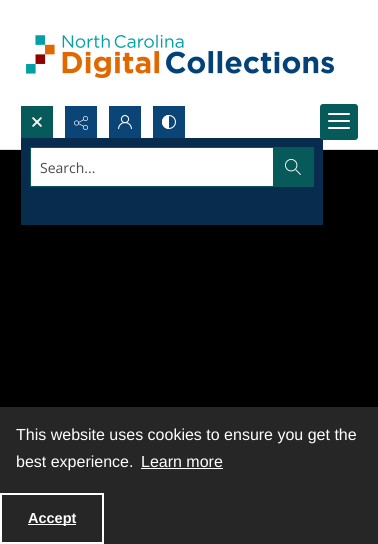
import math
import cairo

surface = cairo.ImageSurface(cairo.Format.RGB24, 378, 544)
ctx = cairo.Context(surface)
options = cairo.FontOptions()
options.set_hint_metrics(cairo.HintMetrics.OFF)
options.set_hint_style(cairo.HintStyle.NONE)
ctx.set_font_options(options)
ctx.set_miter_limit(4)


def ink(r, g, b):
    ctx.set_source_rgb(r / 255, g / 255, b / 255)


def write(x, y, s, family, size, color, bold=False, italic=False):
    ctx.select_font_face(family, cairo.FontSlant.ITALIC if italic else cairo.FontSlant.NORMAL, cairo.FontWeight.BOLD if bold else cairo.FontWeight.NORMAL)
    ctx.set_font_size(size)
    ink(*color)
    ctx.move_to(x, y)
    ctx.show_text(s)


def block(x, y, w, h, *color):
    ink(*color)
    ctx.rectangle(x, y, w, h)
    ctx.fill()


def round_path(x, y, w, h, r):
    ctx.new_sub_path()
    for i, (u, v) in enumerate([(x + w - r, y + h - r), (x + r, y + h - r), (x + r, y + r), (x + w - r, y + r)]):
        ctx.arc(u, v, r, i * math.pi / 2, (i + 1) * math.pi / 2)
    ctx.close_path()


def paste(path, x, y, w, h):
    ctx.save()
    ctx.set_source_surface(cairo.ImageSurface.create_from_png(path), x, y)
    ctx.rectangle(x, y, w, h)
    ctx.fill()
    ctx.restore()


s1 = dict(family="Open Sans", size=14, color=(74, 74, 74))
s2 = dict(family="Liberation Sans", size=16, color=(255, 255, 255))
s3 = dict(family="Liberation Sans", size=14.5, color=(255, 255, 255), bold=True)

ink(255, 255, 255)
ctx.paint()
block(0, 149, 378, 1, 223, 223, 223)
block(0, 150, 378, 257, 0, 0, 0)
paste("pic1.png", 26, 34, 308, 44)
block(21, 138, 302, 87, 7, 44, 77)
ink(7, 90, 90)
round_path(320, 104, 38, 36, 3)
ctx.fill()
ink(255, 255, 255)
round_path(328, 120, 22, 2, 1)
ctx.fill()
round_path(328, 113, 22, 2, 1)
ctx.fill()
round_path(328, 127, 22, 2, 1)
ctx.fill()
block(65, 106, 32, 32, 11, 68, 119)
paste("pic2.png", 74, 116, 14, 14)
block(109, 106, 32, 32, 11, 68, 119)
paste("pic3.png", 118, 115, 14, 14)
block(153, 106, 32, 32, 11, 68, 119)
paste("pic4.png", 162, 115, 14, 14)
block(21, 106, 32, 32, 7, 90, 90)
paste("pic5.png", 32, 117, 10, 10)
block(31, 148, 242, 38, 255, 255, 255)
ctx.rectangle(30.5, 147.5, 283, 39)
ink(7, 90, 90)
ctx.set_line_width(1)
ctx.stroke()
write(40, 173, "Search...", **s1)
block(273, 148, 40, 38, 7, 90, 90)
paste("pic6.png", 285, 159, 16, 16)
block(31, 208, 95, 1, 8, 45, 73)
block(0, 407, 378, 137, 38, 38, 38)
write(16, 440, "This website uses cookies to ensure you get the", **s2)
write(16, 467, "best experience.", **s2)
write(141, 467, "Learn more", **s2)
block(141, 468, 82, 1, 255, 255, 255)
ctx.rectangle(1, 494, 102, 49)
ctx.set_line_width(2)
ctx.stroke()
block(28, 524, 48, 1, 255, 255, 255)
write(28, 523, "Accept", **s3)
surface.write_to_png("screenshot.png")
